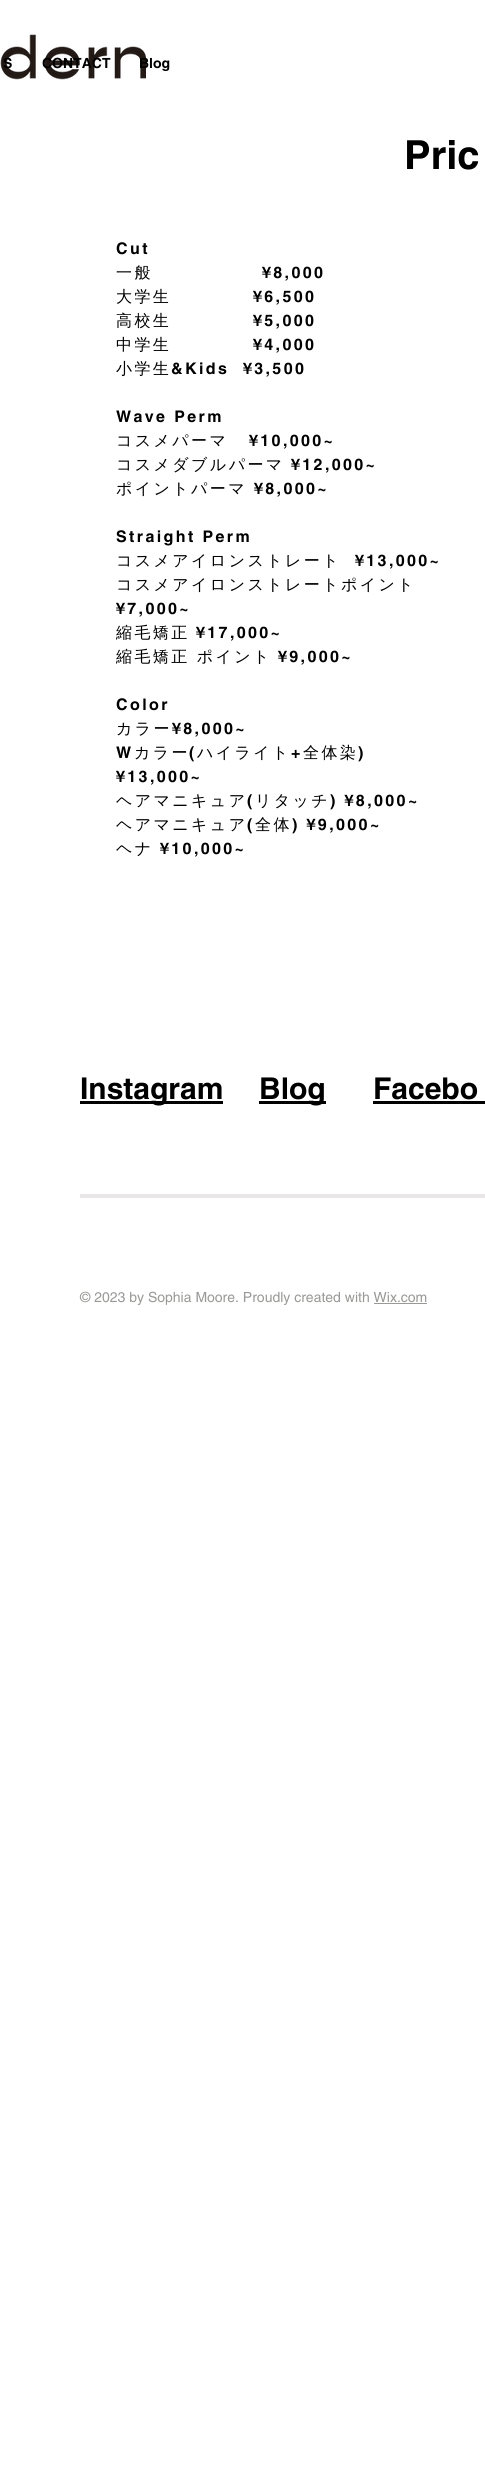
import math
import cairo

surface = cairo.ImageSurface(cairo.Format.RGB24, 485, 2466)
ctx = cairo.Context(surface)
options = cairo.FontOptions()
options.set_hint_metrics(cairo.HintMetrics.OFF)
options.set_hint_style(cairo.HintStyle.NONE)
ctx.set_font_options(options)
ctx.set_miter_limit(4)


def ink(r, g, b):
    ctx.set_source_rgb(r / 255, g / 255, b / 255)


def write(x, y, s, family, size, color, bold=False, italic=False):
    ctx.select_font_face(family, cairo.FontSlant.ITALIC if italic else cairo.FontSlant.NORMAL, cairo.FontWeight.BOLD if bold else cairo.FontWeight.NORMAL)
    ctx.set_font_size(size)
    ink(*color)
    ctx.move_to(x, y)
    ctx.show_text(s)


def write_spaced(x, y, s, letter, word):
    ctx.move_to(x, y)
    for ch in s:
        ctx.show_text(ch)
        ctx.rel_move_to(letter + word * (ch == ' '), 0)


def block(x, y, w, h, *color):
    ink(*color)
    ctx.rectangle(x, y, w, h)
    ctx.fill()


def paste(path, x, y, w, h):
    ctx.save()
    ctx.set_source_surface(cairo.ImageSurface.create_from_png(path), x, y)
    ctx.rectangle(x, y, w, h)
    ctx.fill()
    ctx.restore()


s1 = dict(family="helvetica", size=14, color=(0, 0, 0), bold=True)
s2 = dict(family="helvetica", size=40, color=(0, 0, 0), bold=True)
s3 = dict(family="helvetica", size=30, color=(0, 0, 0), bold=True)
s4 = dict(family="helvetica", size=14, color=(153, 153, 151))

ink(255, 255, 255)
ctx.paint()
paste("pic1.png", 0, 34, 146, 46)
write(3, 68, "S", **s1)
write(42, 68, "CONTACT", **s1)
write(139, 68, "Blog", **s1)
write(404, 169, "Pric", **s2)
ctx.set_font_size(16)
write_spaced(116, 254, "Cut", 2.4, 0)
ctx.select_font_face("WenQuanYi Zen Hei Medium")
write_spaced(116, 278, "一般", 2.4, 0)
ctx.select_font_face("helvetica", cairo.FontSlant.NORMAL, cairo.FontWeight.BOLD)
write_spaced(262, 278, "¥8,000", 2.4, 0)
ctx.select_font_face("WenQuanYi Zen Hei Medium")
write_spaced(116, 302, "大学生", 2.4, 0)
ctx.select_font_face("helvetica", cairo.FontSlant.NORMAL, cairo.FontWeight.BOLD)
write_spaced(253, 302, "¥6,500", 2.4, 0)
ctx.select_font_face("WenQuanYi Zen Hei Medium")
write_spaced(116, 326, "高校生", 2.4, 0)
ctx.select_font_face("helvetica", cairo.FontSlant.NORMAL, cairo.FontWeight.BOLD)
write_spaced(253, 326, "¥5,000", 2.4, 0)
ctx.select_font_face("WenQuanYi Zen Hei Medium")
write_spaced(116, 350, "中学生", 2.4, 0)
ctx.select_font_face("helvetica", cairo.FontSlant.NORMAL, cairo.FontWeight.BOLD)
write_spaced(253, 350, "¥4,000", 2.4, 0)
ctx.select_font_face("WenQuanYi Zen Hei Medium")
write_spaced(116, 374, "小学生", 2.4, 0)
ctx.select_font_face("helvetica", cairo.FontSlant.NORMAL, cairo.FontWeight.BOLD)
write_spaced(171, 374, "&Kids  ¥3,500", 2.4, 0)
write_spaced(116, 422, "Wave Perm", 2.4, 0)
ctx.select_font_face("WenQuanYi Zen Hei Medium")
write_spaced(116, 446, "コスメパーマ", 2.4, 0)
ctx.select_font_face("helvetica", cairo.FontSlant.NORMAL, cairo.FontWeight.BOLD)
write_spaced(249, 446, "¥10,000~", 2.4, 0)
ctx.select_font_face("WenQuanYi Zen Hei Medium")
write_spaced(116, 470, "コスメダブルパーマ", 2.4, 0)
ctx.select_font_face("helvetica", cairo.FontSlant.NORMAL, cairo.FontWeight.BOLD)
write_spaced(291, 470, "¥12,000~", 2.4, 0)
ctx.select_font_face("WenQuanYi Zen Hei Medium")
write_spaced(116, 494, "ポイントパーマ", 2.4, 0)
ctx.select_font_face("helvetica", cairo.FontSlant.NORMAL, cairo.FontWeight.BOLD)
write_spaced(254, 494, "¥8,000~", 2.4, 0)
write_spaced(116, 542, "Straight Perm", 2.4, 0)
ctx.select_font_face("WenQuanYi Zen Hei Medium")
write_spaced(116, 566, "コスメアイロンストレート", 2.4, 0)
ctx.select_font_face("helvetica", cairo.FontSlant.NORMAL, cairo.FontWeight.BOLD)
write_spaced(355, 566, "¥13,000~", 2.4, 0)
ctx.select_font_face("WenQuanYi Zen Hei Medium")
write_spaced(116, 590, "コスメアイロンストレートポイント", 2.4, 0)
ctx.select_font_face("helvetica", cairo.FontSlant.NORMAL, cairo.FontWeight.BOLD)
write_spaced(116, 614, "¥7,000~", 2.4, 0)
ctx.select_font_face("WenQuanYi Zen Hei Medium")
write_spaced(116, 638, "縮毛矯正", 2.4, 0)
ctx.select_font_face("helvetica", cairo.FontSlant.NORMAL, cairo.FontWeight.BOLD)
write_spaced(196, 638, "¥17,000~", 2.4, 0)
ctx.select_font_face("WenQuanYi Zen Hei Medium")
write_spaced(116, 662, "縮毛矯正 ポイント", 2.4, 0)
ctx.select_font_face("helvetica", cairo.FontSlant.NORMAL, cairo.FontWeight.BOLD)
write_spaced(278, 662, "¥9,000~", 2.4, 0)
write_spaced(116, 710, "Color", 2.4, 0)
ctx.select_font_face("WenQuanYi Zen Hei Medium")
write_spaced(116, 734, "カラー", 2.4, 0)
ctx.select_font_face("helvetica", cairo.FontSlant.NORMAL, cairo.FontWeight.BOLD)
write_spaced(172, 734, "¥8,000~", 2.4, 0)
write_spaced(116, 758, "W", 2.4, 0)
ctx.select_font_face("WenQuanYi Zen Hei Medium")
write_spaced(134, 758, "カラー", 2.4, 0)
ctx.select_font_face("helvetica", cairo.FontSlant.NORMAL, cairo.FontWeight.BOLD)
write_spaced(189, 758, "(", 2.4, 0)
ctx.select_font_face("WenQuanYi Zen Hei Medium")
write_spaced(197, 758, "ハイライト", 2.4, 0)
ctx.select_font_face("helvetica", cairo.FontSlant.NORMAL, cairo.FontWeight.BOLD)
write_spaced(291, 758, "+", 2.4, 0)
ctx.select_font_face("WenQuanYi Zen Hei Medium")
write_spaced(303, 758, "全体染", 2.4, 0)
ctx.select_font_face("helvetica", cairo.FontSlant.NORMAL, cairo.FontWeight.BOLD)
write_spaced(358, 758, ")", 2.4, 0)
write_spaced(116, 782, "¥13,000~", 2.4, 0)
ctx.select_font_face("WenQuanYi Zen Hei Medium")
write_spaced(116, 806, "ヘアマニキュア", 2.4, 0)
ctx.select_font_face("helvetica", cairo.FontSlant.NORMAL, cairo.FontWeight.BOLD)
write_spaced(247, 806, "(", 2.4, 0)
ctx.select_font_face("WenQuanYi Zen Hei Medium")
write_spaced(255, 806, "リタッチ", 2.4, 0)
ctx.select_font_face("helvetica", cairo.FontSlant.NORMAL, cairo.FontWeight.BOLD)
write_spaced(330, 806, ") ¥8,000~", 2.4, 0)
ctx.select_font_face("WenQuanYi Zen Hei Medium")
write_spaced(116, 830, "ヘアマニキュア", 2.4, 0)
ctx.select_font_face("helvetica", cairo.FontSlant.NORMAL, cairo.FontWeight.BOLD)
write_spaced(247, 830, "(", 2.4, 0)
ctx.select_font_face("WenQuanYi Zen Hei Medium")
write_spaced(255, 830, "全体", 2.4, 0)
ctx.select_font_face("helvetica", cairo.FontSlant.NORMAL, cairo.FontWeight.BOLD)
write_spaced(292, 830, ") ¥9,000~", 2.4, 0)
ctx.select_font_face("WenQuanYi Zen Hei Medium")
write_spaced(116, 854, "ヘナ", 2.4, 0)
ctx.select_font_face("helvetica", cairo.FontSlant.NORMAL, cairo.FontWeight.BOLD)
write_spaced(160, 854, "¥10,000~", 2.4, 0)
block(80, 1101, 143, 3, 0, 0, 0)
write(80, 1099, "Instagram", **s3)
block(259, 1101, 67, 3, 0, 0, 0)
write(259, 1099, "Blog", **s3)
write(373, 1099, "Facebo", **s3)
block(373, 1101, 112, 3, 0, 0, 0)
block(80, 1194, 405, 4, 232, 230, 230)
write(80, 1302, "© 2023 by Sophia Moore. Proudly created with Wix.com", **s4)
block(374, 1303, 53, 1, 153, 153, 151)
surface.write_to_png("screenshot.png")
